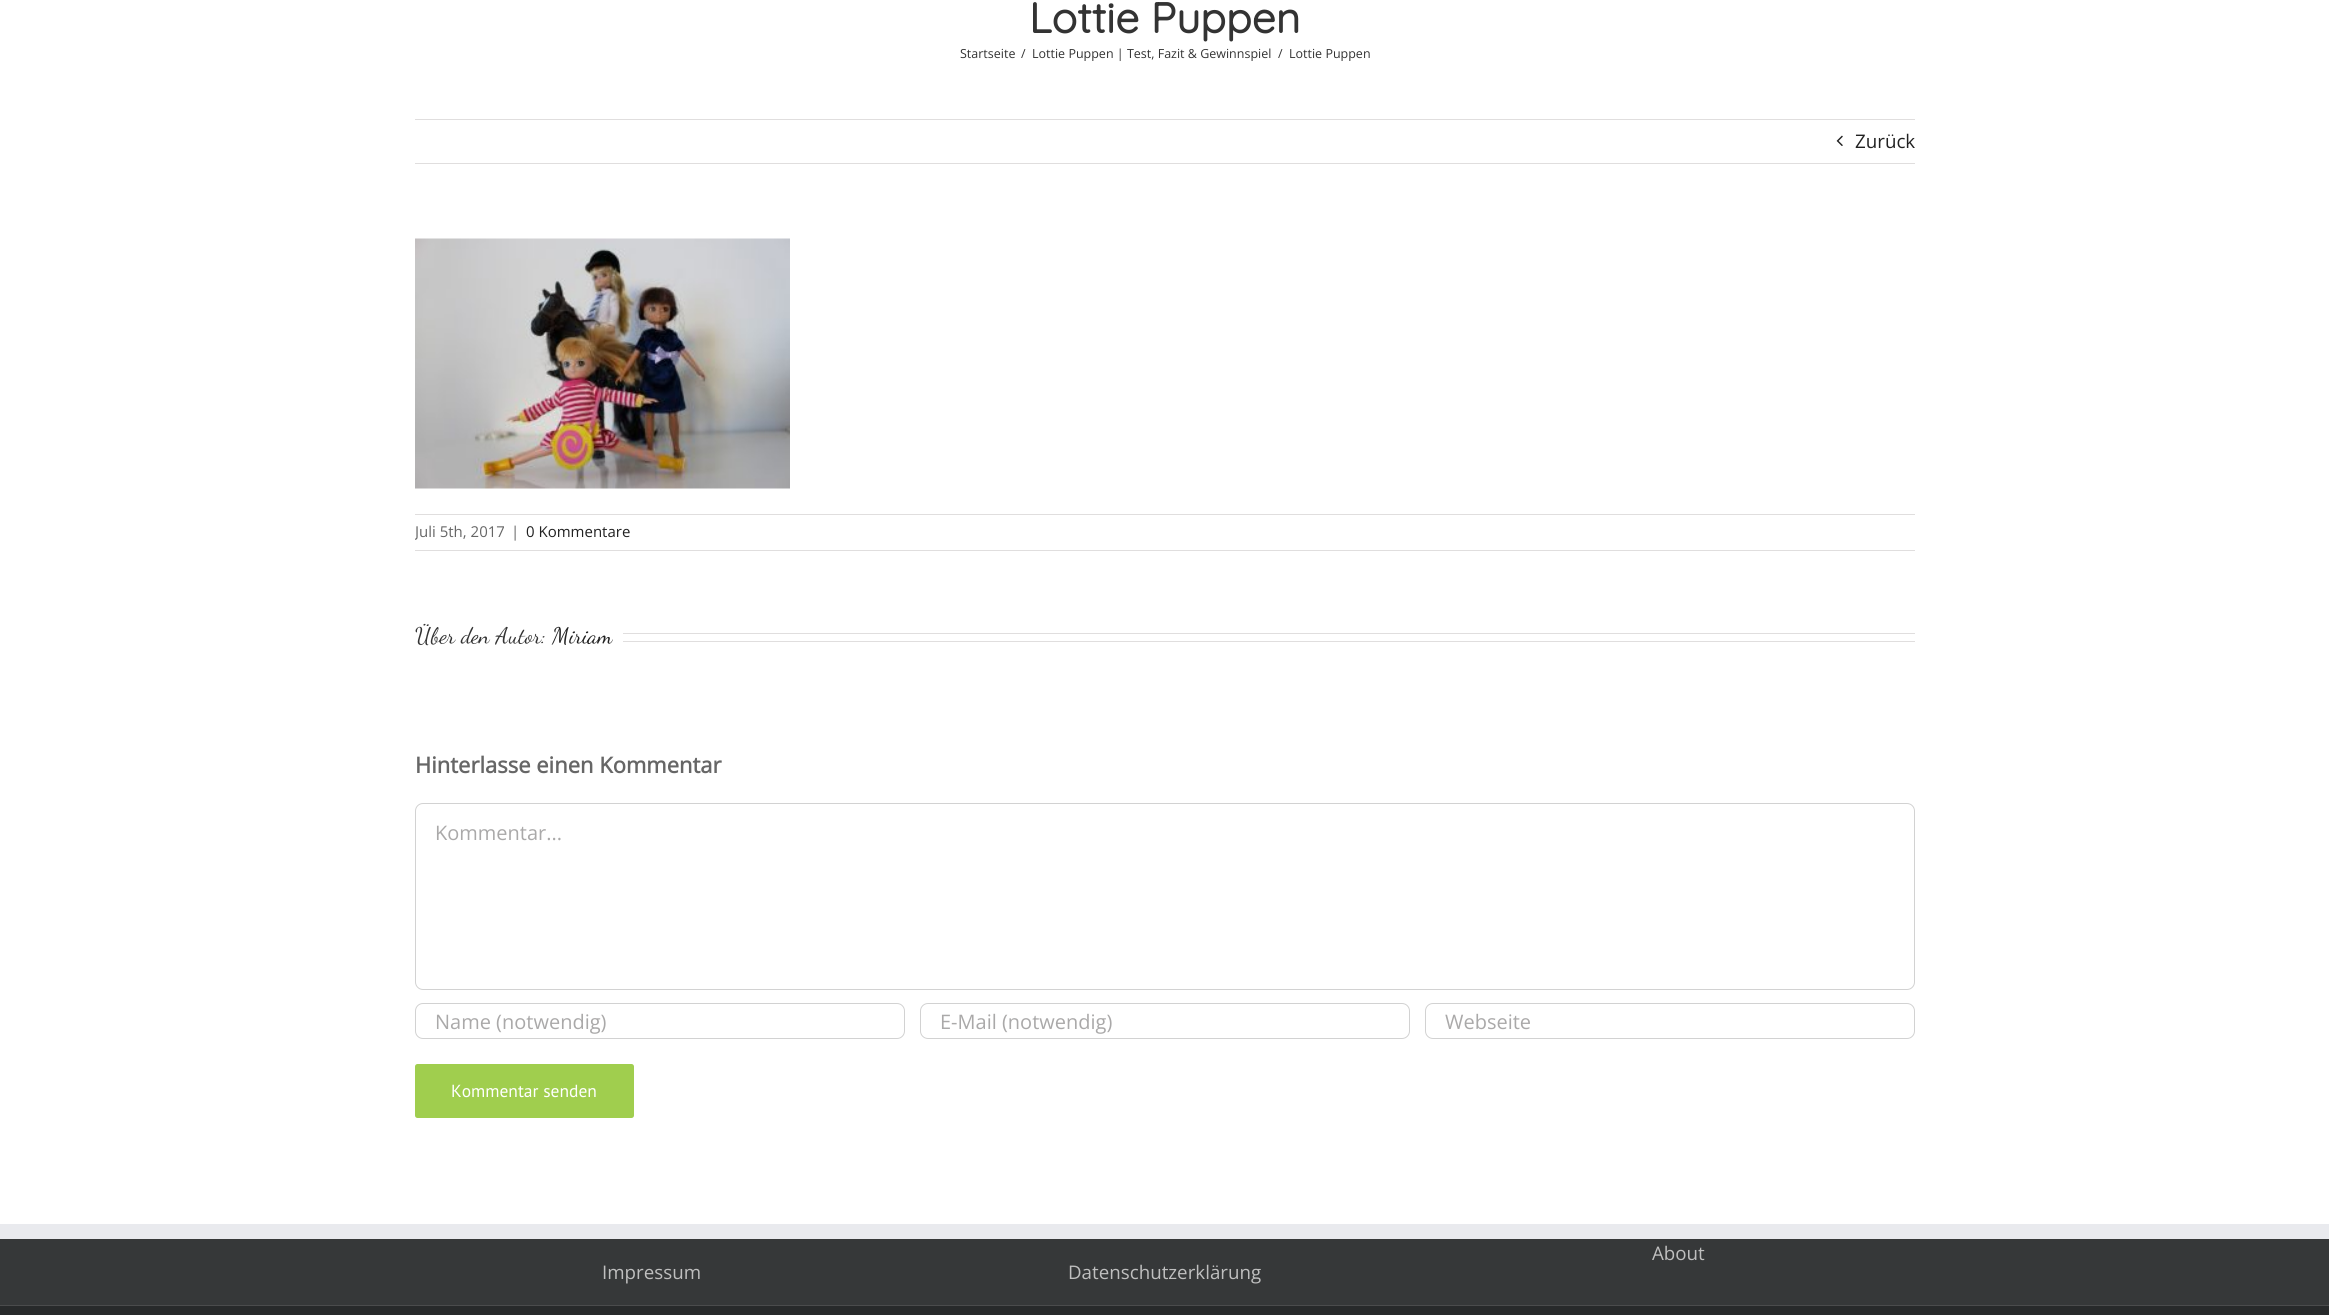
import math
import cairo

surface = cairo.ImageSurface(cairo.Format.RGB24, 2329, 1315)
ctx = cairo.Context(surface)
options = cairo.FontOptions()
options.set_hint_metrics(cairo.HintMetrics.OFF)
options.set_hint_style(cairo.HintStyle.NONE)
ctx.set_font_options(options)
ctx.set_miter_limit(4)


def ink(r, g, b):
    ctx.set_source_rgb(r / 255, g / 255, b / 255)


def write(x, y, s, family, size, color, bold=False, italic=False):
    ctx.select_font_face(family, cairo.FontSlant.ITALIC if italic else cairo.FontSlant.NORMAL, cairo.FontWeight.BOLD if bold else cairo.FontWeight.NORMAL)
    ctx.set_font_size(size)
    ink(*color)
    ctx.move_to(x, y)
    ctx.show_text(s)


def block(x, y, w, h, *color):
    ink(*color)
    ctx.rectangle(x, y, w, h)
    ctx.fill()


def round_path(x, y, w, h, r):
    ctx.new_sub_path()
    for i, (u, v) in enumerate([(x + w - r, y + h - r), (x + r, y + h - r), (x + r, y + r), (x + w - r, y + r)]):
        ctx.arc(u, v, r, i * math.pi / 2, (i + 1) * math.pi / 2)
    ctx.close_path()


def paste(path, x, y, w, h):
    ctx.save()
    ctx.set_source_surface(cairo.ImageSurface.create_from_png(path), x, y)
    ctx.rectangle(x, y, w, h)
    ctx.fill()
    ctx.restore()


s1 = dict(family="Quicksand", size=42.5, color=(51, 51, 51), bold=True)
s2 = dict(family="Open Sans", size=12.5, color=(51, 51, 51))
s3 = dict(family="Open Sans", size=18.75, color=(33, 33, 33))
s4 = dict(family="Open Sans", size=15, color=(102, 102, 102))
s5 = dict(family="Open Sans", size=15, color=(33, 33, 33))
s6 = dict(family="Dancing Script", size=22.5, color=(51, 51, 51))
s7 = dict(family="Dancing Script", size=22.5, color=(33, 33, 33))
s8 = dict(family="Open Sans", size=22, color=(102, 102, 102), bold=True)
s9 = dict(family="Open Sans", size=20, color=(170, 169, 169))
s10 = dict(family="PT Sans", size=17.5, color=(255, 255, 255))
s11 = dict(family="Open Sans", size=18.75, color=(191, 191, 191))

ink(255, 255, 255)
ctx.paint()
write(1029, 33, "Lottie Puppen", **s1)
write(960, 58, "Startseite", **s2)
write(1021, 58, "/", **s2)
write(1032, 58, "Lottie Puppen | Test, Fazit & Gewinnspiel", **s2)
write(1278, 58, "/", **s2)
write(1289, 58, "Lottie Puppen", **s2)
block(415, 119, 1500, 1, 224, 222, 222)
block(415, 163, 1500, 1, 224, 222, 222)
paste("pic1.png", 1836, 135, 7, 11)
write(1855, 148, "Zurück", **s3)
paste("pic2.png", 415, 238, 375, 251)
block(415, 514, 1500, 1, 224, 222, 222)
block(415, 550, 1500, 1, 224, 222, 222)
ctx.save()
ctx.rectangle(415, 515, 1500, 35)
ctx.clip()
write(415, 537, "Juli 5th, 2017", **s4)
ctx.restore()
write(511, 537, "|", **s4)
write(526, 537, "0 Kommentare", **s5)
write(415, 643, "Über den Autor:", **s6)
write(552, 643, "Miriam", **s7)
block(623, 633, 1292, 1, 224, 222, 222)
block(623, 641, 1292, 1, 224, 222, 222)
write(415, 773, "Hinterlasse einen Kommentar", **s8)
round_path(415.5, 803.5, 1499, 186, 7.5)
ink(210, 210, 210)
ctx.set_line_width(1)
ctx.stroke()
write(435, 840, "Kommentar...", **s9)
round_path(415.5, 1003.5, 489, 35, 7.5)
ink(210, 210, 210)
ctx.stroke()
write(435, 1029, "Name (notwendig)", **s9)
round_path(920.5, 1003.5, 489, 35, 7.5)
ink(210, 210, 210)
ctx.stroke()
write(940, 1029, "E-Mail (notwendig)", **s9)
round_path(1425.5, 1003.5, 489, 35, 7.5)
ink(210, 210, 210)
ctx.stroke()
write(1445, 1029, "Webseite", **s9)
ink(160, 206, 78)
round_path(415, 1064, 219, 54, 2.5)
ctx.fill()
write(451, 1097, "Kommentar senden", **s10)
block(0, 1239, 2329, 66, 54, 56, 57)
block(0, 1224, 2329, 15, 233, 234, 238)
write(1652, 1260, "About", **s11)
write(602, 1279, "Impressum", **s11)
write(1068, 1279, "Datenschutzerklärung", **s11)
block(0, 1306, 2329, 9, 40, 42, 43)
block(0, 1305, 2329, 1, 75, 76, 77)
surface.write_to_png("screenshot.png")
